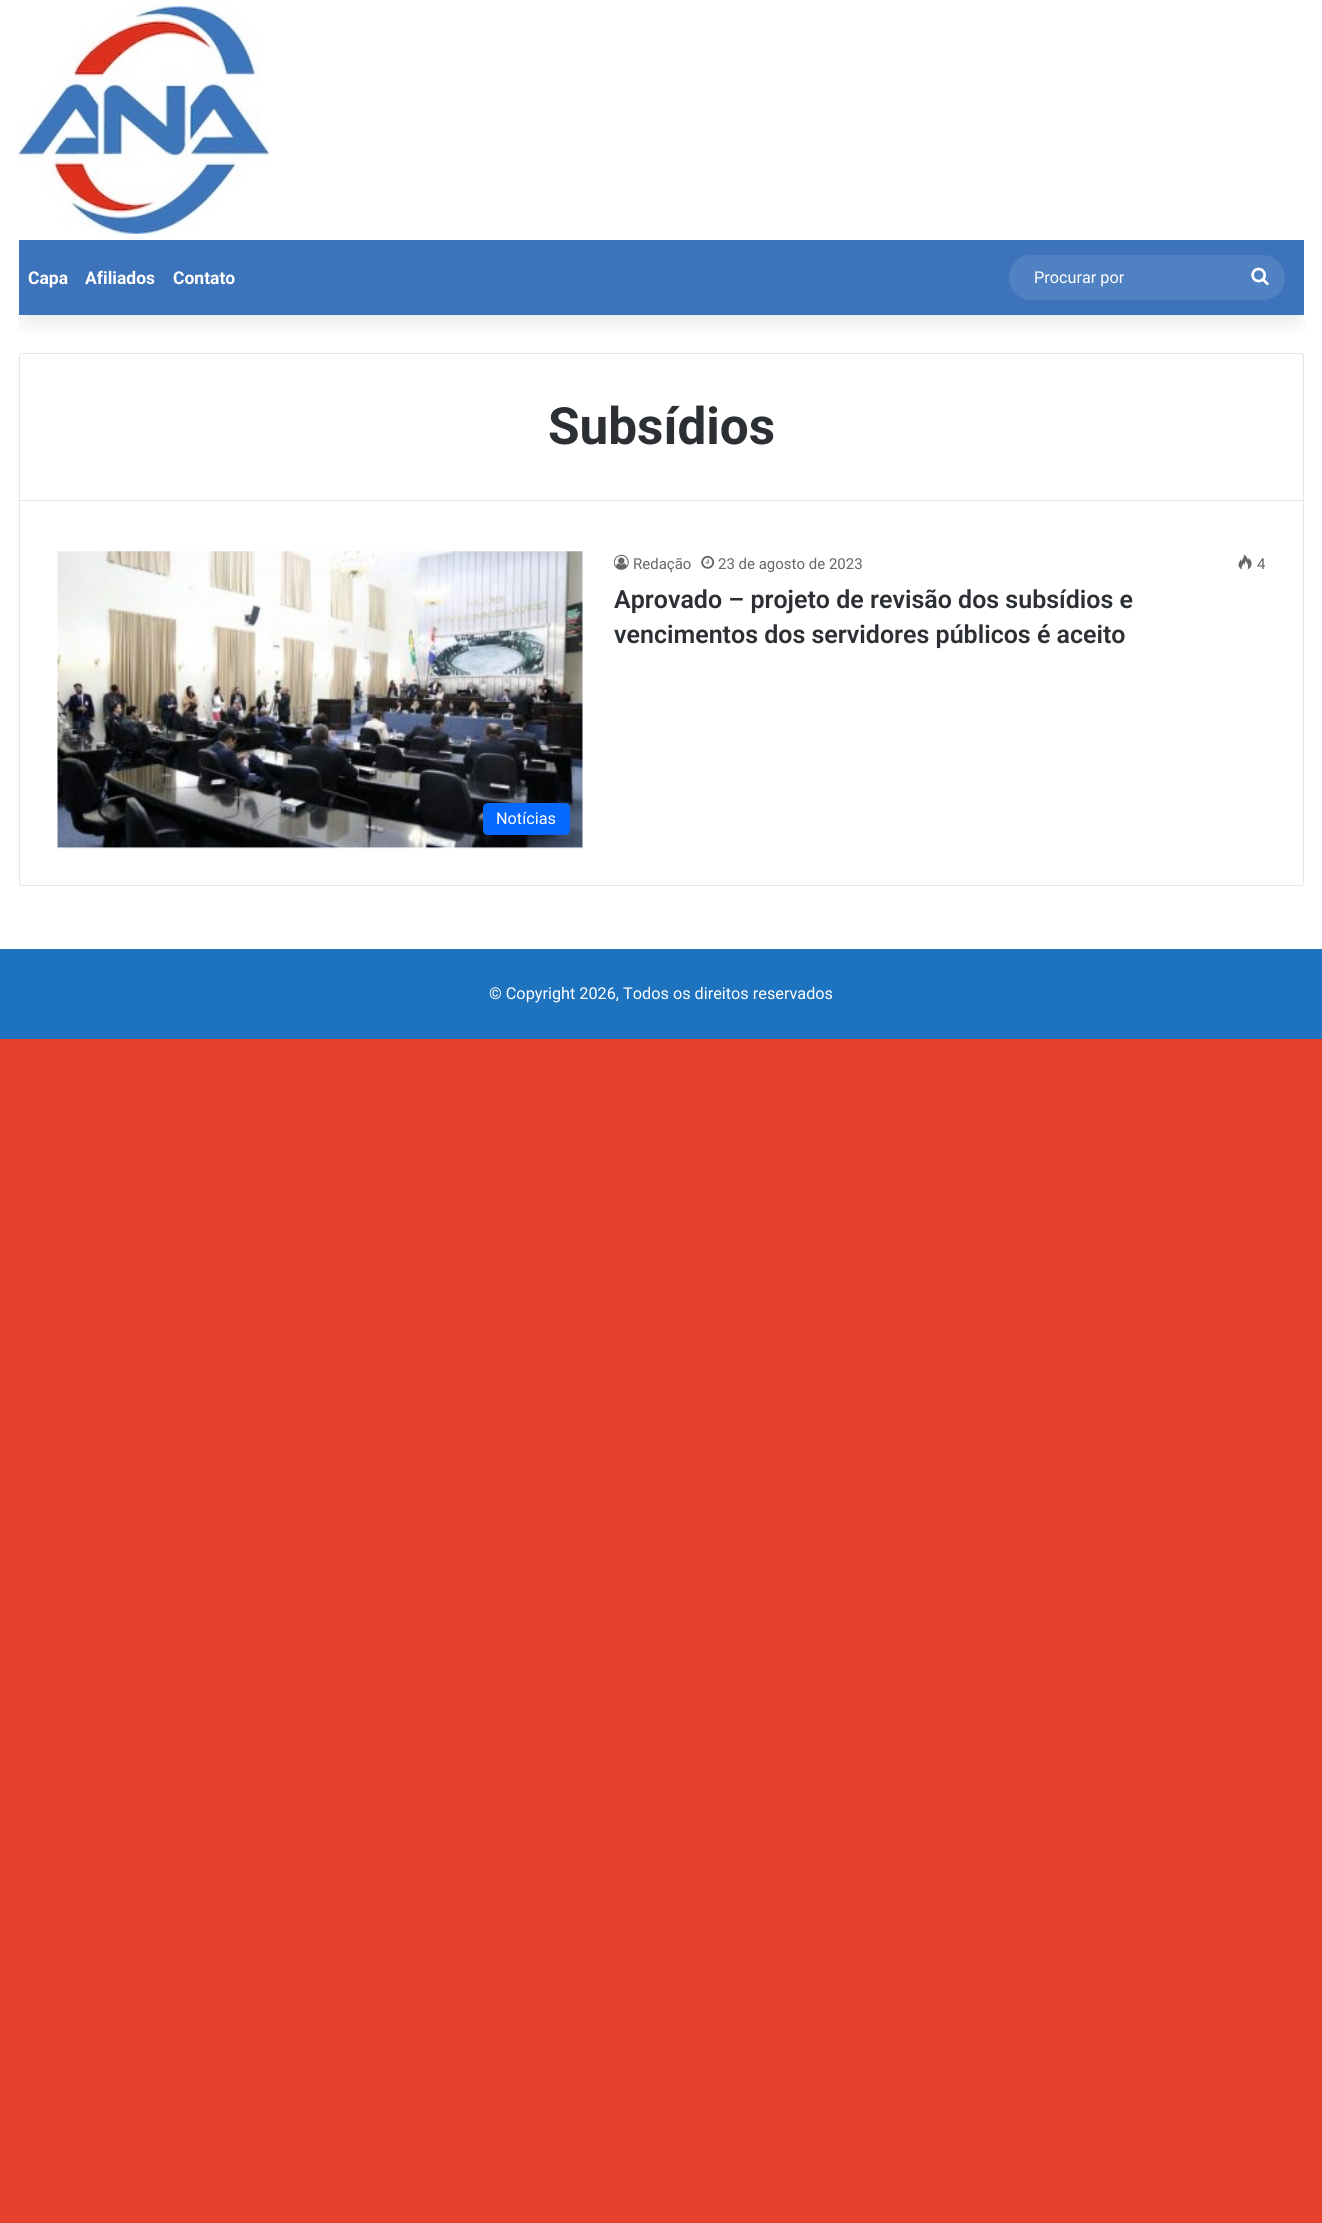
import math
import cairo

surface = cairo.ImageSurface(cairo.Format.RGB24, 1322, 2223)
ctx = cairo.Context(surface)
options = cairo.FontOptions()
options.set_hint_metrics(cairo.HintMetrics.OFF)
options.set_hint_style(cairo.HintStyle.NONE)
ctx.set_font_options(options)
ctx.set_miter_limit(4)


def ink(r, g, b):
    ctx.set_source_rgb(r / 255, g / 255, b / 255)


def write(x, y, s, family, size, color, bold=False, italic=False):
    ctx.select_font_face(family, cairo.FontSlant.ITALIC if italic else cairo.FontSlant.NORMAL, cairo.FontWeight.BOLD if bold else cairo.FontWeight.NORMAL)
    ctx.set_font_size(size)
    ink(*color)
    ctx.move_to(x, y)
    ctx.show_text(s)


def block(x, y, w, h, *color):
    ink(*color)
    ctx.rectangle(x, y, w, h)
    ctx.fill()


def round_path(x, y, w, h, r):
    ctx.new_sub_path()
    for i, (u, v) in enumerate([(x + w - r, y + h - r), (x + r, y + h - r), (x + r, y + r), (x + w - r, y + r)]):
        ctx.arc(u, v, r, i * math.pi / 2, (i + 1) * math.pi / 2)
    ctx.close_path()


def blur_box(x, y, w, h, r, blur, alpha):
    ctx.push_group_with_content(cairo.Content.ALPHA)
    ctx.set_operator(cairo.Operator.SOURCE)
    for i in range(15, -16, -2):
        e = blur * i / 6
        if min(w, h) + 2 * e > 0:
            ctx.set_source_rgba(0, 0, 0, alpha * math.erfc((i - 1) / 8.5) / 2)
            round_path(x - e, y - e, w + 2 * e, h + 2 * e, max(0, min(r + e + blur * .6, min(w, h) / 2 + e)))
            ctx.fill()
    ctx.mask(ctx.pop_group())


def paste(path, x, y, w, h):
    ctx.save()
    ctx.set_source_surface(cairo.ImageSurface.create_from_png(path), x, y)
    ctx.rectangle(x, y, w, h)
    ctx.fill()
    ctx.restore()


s1 = dict(family="Roboto", size=17.5, color=(255, 255, 255), bold=True)
s2 = dict(family="Roboto", size=16.25, color=(255, 255, 255))
s3 = dict(family="Roboto", size=51.25, color=(44, 47, 52), bold=True)
s4 = dict(family="Roboto", size=15, color=(102, 102, 102))
s5 = dict(family="Roboto SemiBold", size=25, color=(44, 47, 52))

ink(232, 64, 46)
ctx.paint()
block(0, 0, 1322, 949, 255, 255, 255)
ctx.new_path()
ctx.move_to(21.5, 353.5)
ctx.line_to(1301.5, 353.5)
ctx.curve_to(1302.5, 353.5, 1303.5, 354.5, 1303.5, 355.5)
ctx.line_to(1303.5, 500.5)
ctx.line_to(19.5, 500.5)
ctx.line_to(19.5, 355.5)
ctx.curve_to(19.5, 354.5, 20.5, 353.5, 21.5, 353.5)
ctx.close_path()
ink(230, 230, 230)
ctx.set_line_width(1)
ctx.stroke()
ctx.save()
ctx.rectangle(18, 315, 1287, 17)
ctx.clip()
ink(0, 0, 0)
blur_box(25, 56, 1273, 265, 0, 12.5, 0.1)
ctx.restore()
paste("pic1.png", 18, 6, 251, 228)
block(19, 240, 1285, 75, 61, 115, 187)
write(28, 284, "Capa", **s1)
write(85, 284, "Afiliados", **s1)
write(173, 284, "Contato", **s1)
ink(80, 129, 194)
round_path(1009, 255, 276, 45, 22.5)
ctx.fill()
write(1034, 283, "Procurar por", **s2)
paste("pic2.png", 1251, 267, 18, 19)
write(548, 444, "Subsídios", **s3)
block(1303, 501, 1, 384, 230, 230, 230)
block(20, 885, 1283, 1, 230, 230, 230)
block(19, 501, 1, 384, 230, 230, 230)
paste("pic3.png", 614, 554, 15, 16)
write(633, 569, "Redação", **s4)
paste("pic4.png", 701, 555, 14, 14)
write(718, 569, "23 de agosto de 2023", **s4)
paste("pic5.png", 1238, 554, 14, 16)
write(1257, 569, "4", **s4)
write(614, 608, "Aprovado – projeto de revisão dos subsídios e", **s5)
write(614, 643, "vencimentos dos servidores públicos é aceito", **s5)
paste("pic6.png", 57, 551, 526, 298)
ink(6, 105, 255)
round_path(483, 803, 87, 32, 5)
ctx.fill()
write(496, 824, "Notícias", **s2)
block(0, 949, 1322, 90, 30, 115, 190)
write(489, 999, "© Copyright 2026, Todos os direitos reservados", **s2)
surface.write_to_png("screenshot.png")
